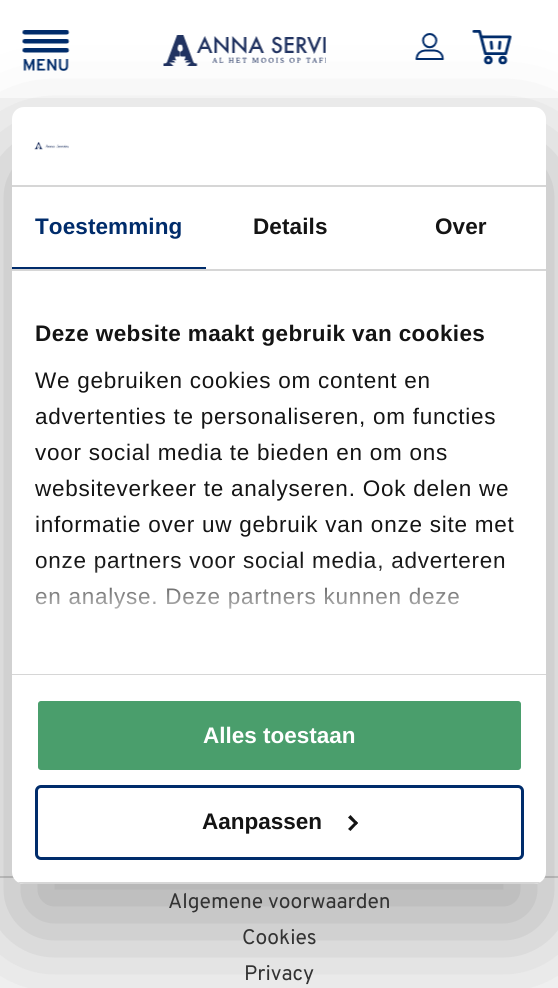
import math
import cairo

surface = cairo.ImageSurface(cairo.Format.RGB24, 558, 988)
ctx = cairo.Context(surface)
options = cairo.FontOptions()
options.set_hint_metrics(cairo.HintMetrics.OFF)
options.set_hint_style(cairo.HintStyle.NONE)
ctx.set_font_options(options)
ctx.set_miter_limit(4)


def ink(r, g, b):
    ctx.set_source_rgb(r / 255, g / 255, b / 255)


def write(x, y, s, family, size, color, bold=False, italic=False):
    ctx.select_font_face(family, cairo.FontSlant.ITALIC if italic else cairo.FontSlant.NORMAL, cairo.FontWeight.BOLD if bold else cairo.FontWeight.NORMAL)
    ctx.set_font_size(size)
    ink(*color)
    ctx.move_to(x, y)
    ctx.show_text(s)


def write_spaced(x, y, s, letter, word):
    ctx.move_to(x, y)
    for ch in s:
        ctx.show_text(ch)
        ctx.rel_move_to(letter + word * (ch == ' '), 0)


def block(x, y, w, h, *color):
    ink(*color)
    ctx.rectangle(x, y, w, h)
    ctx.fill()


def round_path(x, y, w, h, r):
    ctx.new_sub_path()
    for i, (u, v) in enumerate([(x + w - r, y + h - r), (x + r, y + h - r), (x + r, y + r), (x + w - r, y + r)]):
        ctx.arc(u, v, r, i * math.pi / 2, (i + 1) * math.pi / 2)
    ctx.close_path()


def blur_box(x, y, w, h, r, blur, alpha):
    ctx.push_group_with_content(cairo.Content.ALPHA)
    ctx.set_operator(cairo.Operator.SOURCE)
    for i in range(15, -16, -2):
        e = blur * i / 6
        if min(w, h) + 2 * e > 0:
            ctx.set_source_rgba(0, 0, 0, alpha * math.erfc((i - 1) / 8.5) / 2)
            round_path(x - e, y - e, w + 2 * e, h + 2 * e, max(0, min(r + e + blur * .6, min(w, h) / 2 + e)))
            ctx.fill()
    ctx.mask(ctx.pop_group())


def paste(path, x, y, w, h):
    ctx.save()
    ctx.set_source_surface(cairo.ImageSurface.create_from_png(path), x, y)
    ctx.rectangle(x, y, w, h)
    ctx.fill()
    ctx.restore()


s1 = dict(family="Liberation Sans", size=22.5, color=(255, 255, 255), bold=True)
s2 = dict(family="Liberation Sans", size=22.5, color=(20, 20, 20), bold=True)
s3 = dict(family="Overpass", size=21, color=(51, 51, 51))

ink(246, 246, 246)
ctx.paint()
block(0, 0, 558, 98, 255, 255, 255)
paste("pic2.png", 22, 30, 48, 41)
paste("pic3.png", 163, 35, 163, 31)
paste("pic4.png", 415, 33, 30, 27)
paste("pic5.png", 472, 30, 40, 35)
block(0, 876, 558, 2, 207, 207, 207)
ink(0, 0, 0)
blur_box(12, 155, 534, 777, 12, 51, 0.3)
ink(255, 255, 255)
round_path(12, 107, 534, 777, 12)
ctx.fill()
block(12, 185, 534, 2, 214, 214, 214)
paste("pic1.png", 34, 142, 35, 8)
block(12, 269, 534, 2, 214, 214, 214)
block(12, 267, 194, 2, 0, 44, 107)
ctx.select_font_face("Liberation Sans", cairo.FontSlant.NORMAL, cairo.FontWeight.BOLD)
ctx.set_font_size(22.5)
write_spaced(35, 234, "Toestemming", 0.1, 0)
ink(20, 20, 20)
write_spaced(253, 234, "Details", 0.1, 0)
write_spaced(435, 234, "Over", 0.1, 0)
block(12, 674, 534, 1, 214, 214, 214)
ink(20, 20, 20)
write_spaced(35, 341, "Deze website maakt gebruik van cookies", 0.4, 0)
ctx.select_font_face("Liberation Sans")
write_spaced(35, 388, "We gebruiken cookies om content en", 0.75, 0)
write_spaced(35, 424, "advertenties te personaliseren, om functies", 0.75, 0)
write_spaced(35, 460, "voor social media te bieden en om ons", 0.75, 0)
write_spaced(35, 496, "websiteverkeer te analyseren. Ook delen we", 0.75, 0)
write_spaced(35, 532, "informatie over uw gebruik van onze site met", 0.75, 0)
write_spaced(35, 568, "onze partners voor social media, adverteren", 0.75, 0)
write_spaced(35, 604, "en analyse. Deze partners kunnen deze", 0.75, 0)
gradient = cairo.LinearGradient(269, 674, 269, 561)
gradient.add_color_stop_rgba(0, 1, 1, 1, 1)
gradient.add_color_stop_rgba(0.5, 1, 1, 1, 0.8)
gradient.add_color_stop_rgba(1, 1, 1, 1, 0)
ctx.set_source(gradient)
ctx.rectangle(35, 563, 469, 46)
ctx.fill()
ctx.save()
round_path(12, 107, 534, 777, 12)
ctx.clip()
block(12, 882, 534, 2, 214, 214, 214)
ctx.restore()
ink(74, 158, 108)
round_path(36.5, 699.5, 486, 72, 4.5)
ctx.fill_preserve()
ink(255, 255, 255)
ctx.set_line_width(3)
ctx.stroke()
write(203, 743, "Alles toestaan", **s1)
round_path(36.5, 786.5, 486, 72, 4.5)
ink(0, 44, 107)
ctx.stroke()
write(202, 829, "Aanpassen", **s2)
ctx.new_path()
ctx.move_to(350.5, 815)
ctx.line_to(358, 823)
ctx.line_to(356, 825)
ctx.line_to(348, 817.5)
ctx.close_path()
ctx.fill()
ctx.new_path()
ctx.move_to(356, 821)
ctx.line_to(358, 823)
ctx.line_to(350.5, 831)
ctx.line_to(348, 829)
ctx.close_path()
ctx.fill()
write(168, 908, "Algemene voorwaarden", **s3)
write(242, 944, "Cookies", **s3)
write(244, 980, "Privacy", **s3)
surface.write_to_png("screenshot.png")
